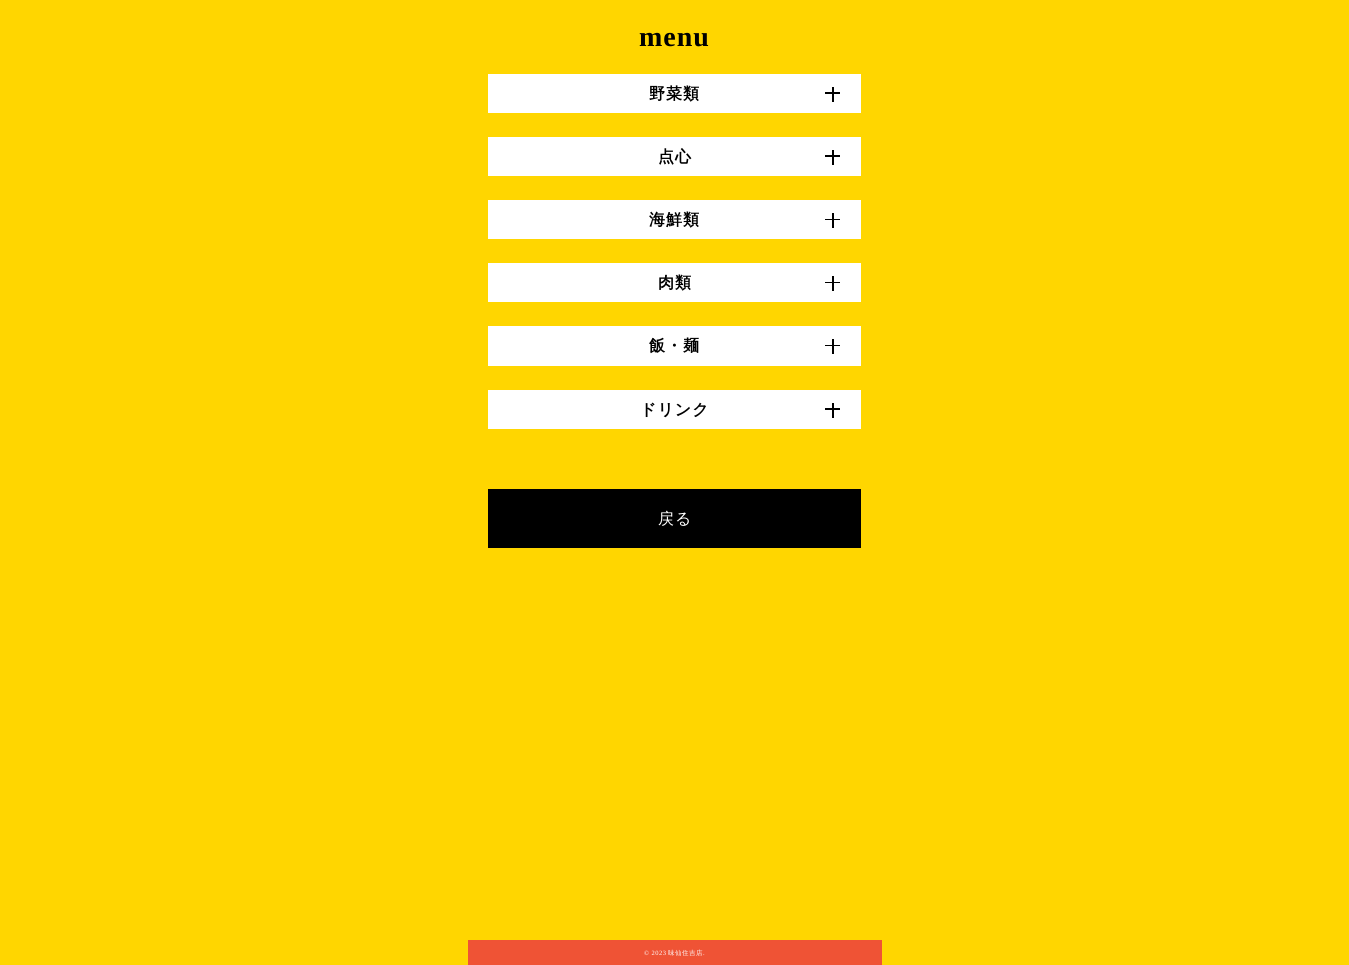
import math
import cairo

surface = cairo.ImageSurface(cairo.Format.RGB24, 1349, 965)
ctx = cairo.Context(surface)
options = cairo.FontOptions()
options.set_hint_metrics(cairo.HintMetrics.OFF)
options.set_hint_style(cairo.HintStyle.NONE)
ctx.set_font_options(options)
ctx.set_miter_limit(4)


def ink(r, g, b):
    ctx.set_source_rgb(r / 255, g / 255, b / 255)


def write_spaced(x, y, s, letter, word):
    ctx.move_to(x, y)
    for ch in s:
        ctx.show_text(ch)
        ctx.rel_move_to(letter + word * (ch == ' '), 0)


def block(x, y, w, h, *color):
    ink(*color)
    ctx.rectangle(x, y, w, h)
    ctx.fill()


ink(255, 214, 0)
ctx.paint()
ctx.select_font_face("Liberation Serif", cairo.FontSlant.NORMAL, cairo.FontWeight.BOLD)
ctx.set_font_size(28)
ink(0, 0, 0)
write_spaced(639, 46, "menu", 1, 0)
block(488, 74, 373, 39, 255, 255, 255)
ctx.select_font_face("WenQuanYi Zen Hei", cairo.FontSlant.NORMAL, cairo.FontWeight.BOLD)
ctx.set_font_size(16)
ink(0, 0, 0)
write_spaced(649, 99, "野菜類", 1, 0)
block(825, 92, 15, 2, 0, 0, 0)
block(832, 87, 2, 15, 0, 0, 0)
block(488, 137, 373, 39, 255, 255, 255)
ink(0, 0, 0)
write_spaced(658, 162, "点心", 1, 0)
block(825, 155, 15, 2, 0, 0, 0)
block(832, 150, 2, 15, 0, 0, 0)
block(488, 200, 373, 39, 255, 255, 255)
ink(0, 0, 0)
write_spaced(649, 225, "海鮮類", 1, 0)
block(825, 219, 15, 1, 0, 0, 0)
block(832, 213, 2, 15, 0, 0, 0)
block(488, 263, 373, 39, 255, 255, 255)
ink(0, 0, 0)
write_spaced(658, 288, "肉類", 1, 0)
block(825, 282, 15, 1, 0, 0, 0)
block(832, 276, 2, 15, 0, 0, 0)
block(488, 326, 373, 40, 255, 255, 255)
ink(0, 0, 0)
write_spaced(649, 351, "飯・麺", 1, 0)
block(825, 345, 15, 1, 0, 0, 0)
block(832, 339, 2, 15, 0, 0, 0)
block(488, 390, 373, 39, 255, 255, 255)
ink(0, 0, 0)
write_spaced(640, 415, "ドリンク", 1, 0)
block(825, 408, 15, 2, 0, 0, 0)
block(832, 403, 2, 15, 0, 0, 0)
block(488, 489, 373, 59, 0, 0, 0)
ctx.select_font_face("WenQuanYi Zen Hei Medium")
ink(255, 255, 255)
write_spaced(658, 524, "戻る", 1, 0)
block(468, 940, 414, 25, 239, 83, 53)
ctx.select_font_face("Liberation Serif")
ctx.set_font_size(6.5)
ink(255, 255, 255)
write_spaced(644, 955, "© 2023", 0.5, 0)
ctx.select_font_face("WenQuanYi Zen Hei Medium")
write_spaced(668, 955, "味仙住吉店", 0.5, 0)
ctx.select_font_face("Liberation Serif")
write_spaced(703, 955, ".", 0.5, 0)
surface.write_to_png("screenshot.png")
